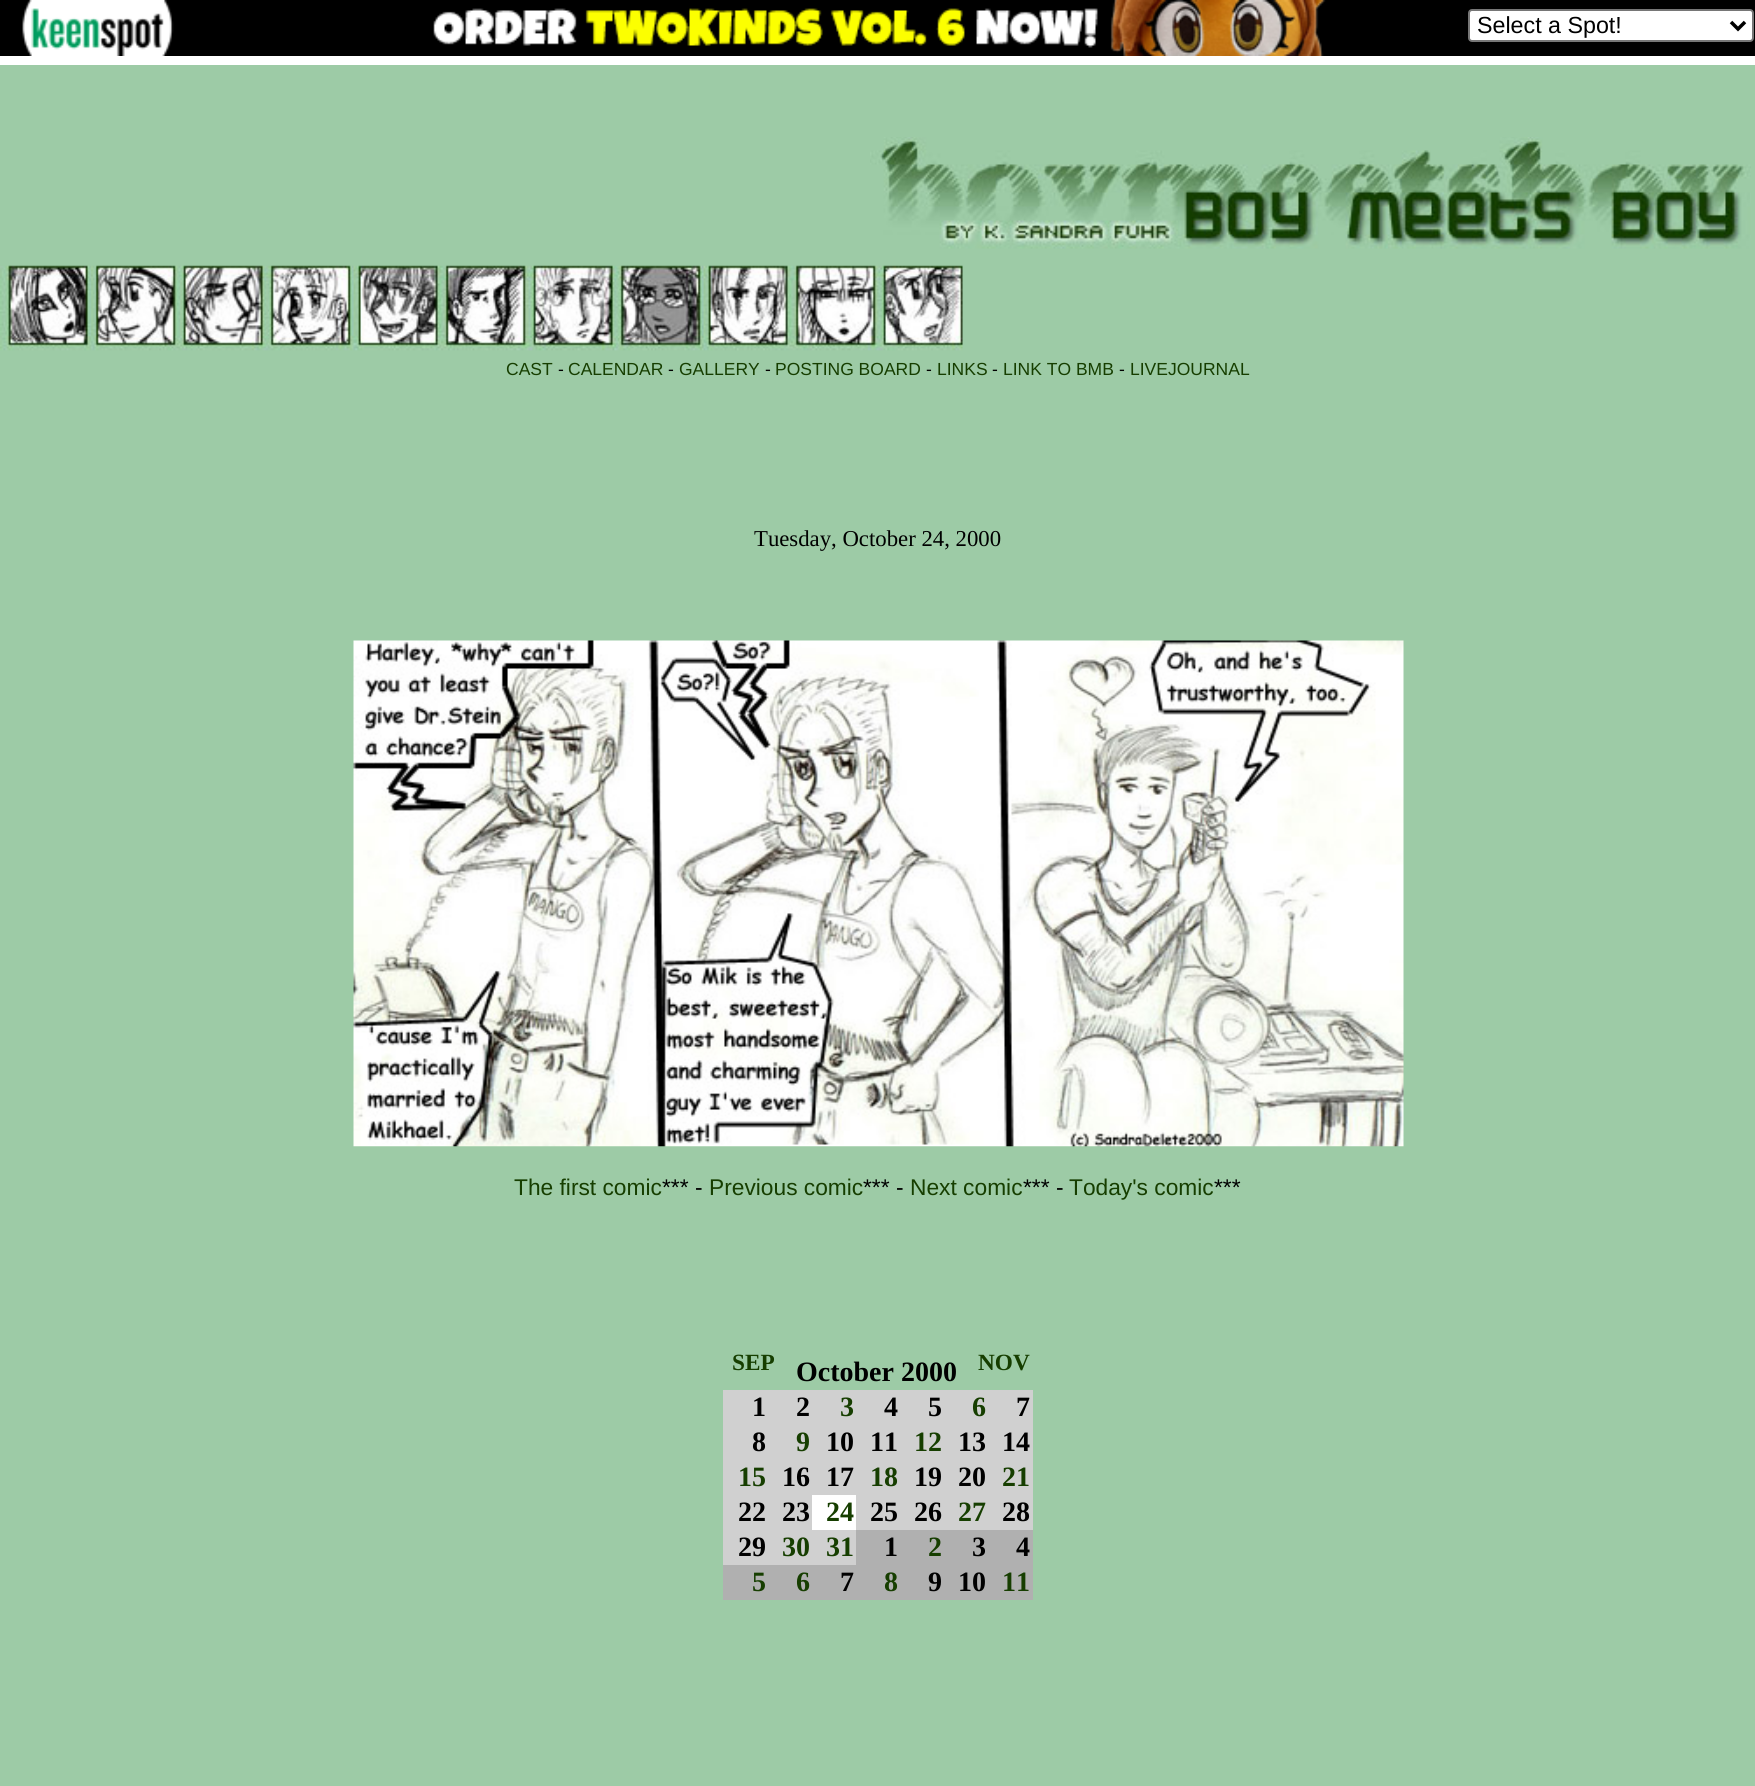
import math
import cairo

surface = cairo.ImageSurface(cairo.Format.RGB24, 1755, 1786)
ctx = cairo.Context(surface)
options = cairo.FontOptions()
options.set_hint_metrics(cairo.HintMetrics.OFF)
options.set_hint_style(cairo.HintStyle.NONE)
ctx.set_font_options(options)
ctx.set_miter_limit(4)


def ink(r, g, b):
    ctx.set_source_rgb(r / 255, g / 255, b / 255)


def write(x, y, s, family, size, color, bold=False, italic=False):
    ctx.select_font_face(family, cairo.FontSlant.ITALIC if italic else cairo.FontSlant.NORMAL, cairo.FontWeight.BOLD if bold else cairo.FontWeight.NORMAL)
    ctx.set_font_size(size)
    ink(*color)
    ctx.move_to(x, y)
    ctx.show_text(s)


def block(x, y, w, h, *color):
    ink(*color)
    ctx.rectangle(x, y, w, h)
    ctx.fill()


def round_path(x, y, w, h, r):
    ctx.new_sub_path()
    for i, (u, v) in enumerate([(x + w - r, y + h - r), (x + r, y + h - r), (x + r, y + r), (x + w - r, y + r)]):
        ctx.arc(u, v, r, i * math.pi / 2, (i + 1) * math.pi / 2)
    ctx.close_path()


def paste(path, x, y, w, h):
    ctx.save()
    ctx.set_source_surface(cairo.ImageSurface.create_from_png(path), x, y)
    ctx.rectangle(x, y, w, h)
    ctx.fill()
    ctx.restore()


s1 = dict(family="Liberation Sans", size=23.25, color=(0, 0, 0))
s2 = dict(family="Liberation Sans", size=17.5, color=(22, 62, 0))
s3 = dict(family="Liberation Sans", size=17.5, color=(0, 0, 0))
s4 = dict(family="Liberation Serif", size=22.75, color=(0, 0, 0))
s5 = dict(family="Liberation Sans", size=22.75, color=(22, 62, 0))
s6 = dict(family="Liberation Sans", size=22.75, color=(0, 0, 0))
s7 = dict(family="Liberation Serif", size=23.25, color=(22, 62, 0), bold=True)
s8 = dict(family="Liberation Serif", size=28, color=(0, 0, 0), bold=True)
s9 = dict(family="Liberation Serif", size=28, color=(22, 62, 0), bold=True)

ink(157, 203, 166)
ctx.paint()
block(0, 0, 1755, 56, 0, 0, 0)
block(0, 56, 1755, 9, 255, 255, 255)
paste("pic1.png", 22, 0, 152, 56)
paste("pic2.png", 433, 0, 893, 56)
round_path(1469, 10, 284, 31, 3)
ctx.fill_preserve()
ink(118, 118, 118)
ctx.stroke()
ctx.new_path()
ctx.move_to(1731, 22)
ctx.line_to(1738, 29)
ctx.line_to(1745, 22)
ink(0, 0, 0)
ctx.set_line_width(3.5)
ctx.stroke()
write(1477, 33, "Select a Spot!", **s1)
paste("pic3.png", 870, 137, 881, 112)
paste("pic4.png", 0, 265, 963, 86)
write(506, 375, "CAST", **s2)
write(558, 375, "-", **s3)
write(568, 375, "CALENDAR", **s2)
write(668, 375, "-", **s3)
write(679, 375, "GALLERY", **s2)
write(765, 375, "-", **s3)
write(775, 375, "POSTING BOARD", **s2)
write(926, 375, "-", **s3)
write(937, 375, "LINKS", **s2)
write(992, 375, "-", **s3)
write(1003, 375, "LINK TO BMB", **s2)
write(1119, 375, "-", **s3)
write(1130, 375, "LIVEJOURNAL", **s2)
write(754, 546, "Tuesday, October 24, 2000", **s4)
paste("pic5.png", 353, 640, 1051, 507)
write(514, 1195, "The first comic", **s5)
write(662, 1195, "*** -", **s6)
write(709, 1195, "Previous comic", **s5)
write(863, 1195, "*** -", **s6)
write(910, 1195, "Next comic", **s5)
write(1023, 1195, "*** -", **s6)
write(1069, 1195, "Today's comic", **s5)
write(1214, 1195, "***", **s6)
write(732, 1370, "SEP", **s7)
write(796, 1381, "October 2000", **s8)
write(978, 1370, "NOV", **s7)
block(723, 1390, 310, 140, 208, 208, 208)
write(752, 1416, "1", **s8)
write(796, 1416, "2", **s8)
write(840, 1416, "3", **s9)
write(884, 1416, "4", **s8)
write(928, 1416, "5", **s8)
write(972, 1416, "6", **s9)
write(1016, 1416, "7", **s8)
write(752, 1451, "8", **s8)
write(796, 1451, "9", **s9)
write(826, 1451, "10", **s8)
write(870, 1451, "11", **s8)
write(914, 1451, "12", **s9)
write(958, 1451, "13", **s8)
write(1002, 1451, "14", **s8)
write(738, 1486, "15", **s9)
write(782, 1486, "16", **s8)
write(826, 1486, "17", **s8)
write(870, 1486, "18", **s9)
write(914, 1486, "19", **s8)
write(958, 1486, "20", **s8)
write(1002, 1486, "21", **s9)
write(738, 1521, "22", **s8)
write(782, 1521, "23", **s8)
block(812, 1495, 44, 35, 255, 255, 255)
write(826, 1521, "24", **s9)
write(870, 1521, "25", **s8)
write(914, 1521, "26", **s8)
write(958, 1521, "27", **s9)
write(1002, 1521, "28", **s8)
block(723, 1530, 133, 35, 208, 208, 208)
write(738, 1556, "29", **s8)
write(782, 1556, "30", **s9)
write(826, 1556, "31", **s9)
block(856, 1530, 177, 35, 176, 176, 176)
write(884, 1556, "1", **s8)
write(928, 1556, "2", **s9)
write(972, 1556, "3", **s8)
write(1016, 1556, "4", **s8)
block(723, 1565, 310, 35, 176, 176, 176)
write(752, 1591, "5", **s9)
write(796, 1591, "6", **s9)
write(840, 1591, "7", **s8)
write(884, 1591, "8", **s9)
write(928, 1591, "9", **s8)
write(958, 1591, "10", **s8)
write(1002, 1591, "11", **s9)
surface.write_to_png("screenshot.png")
